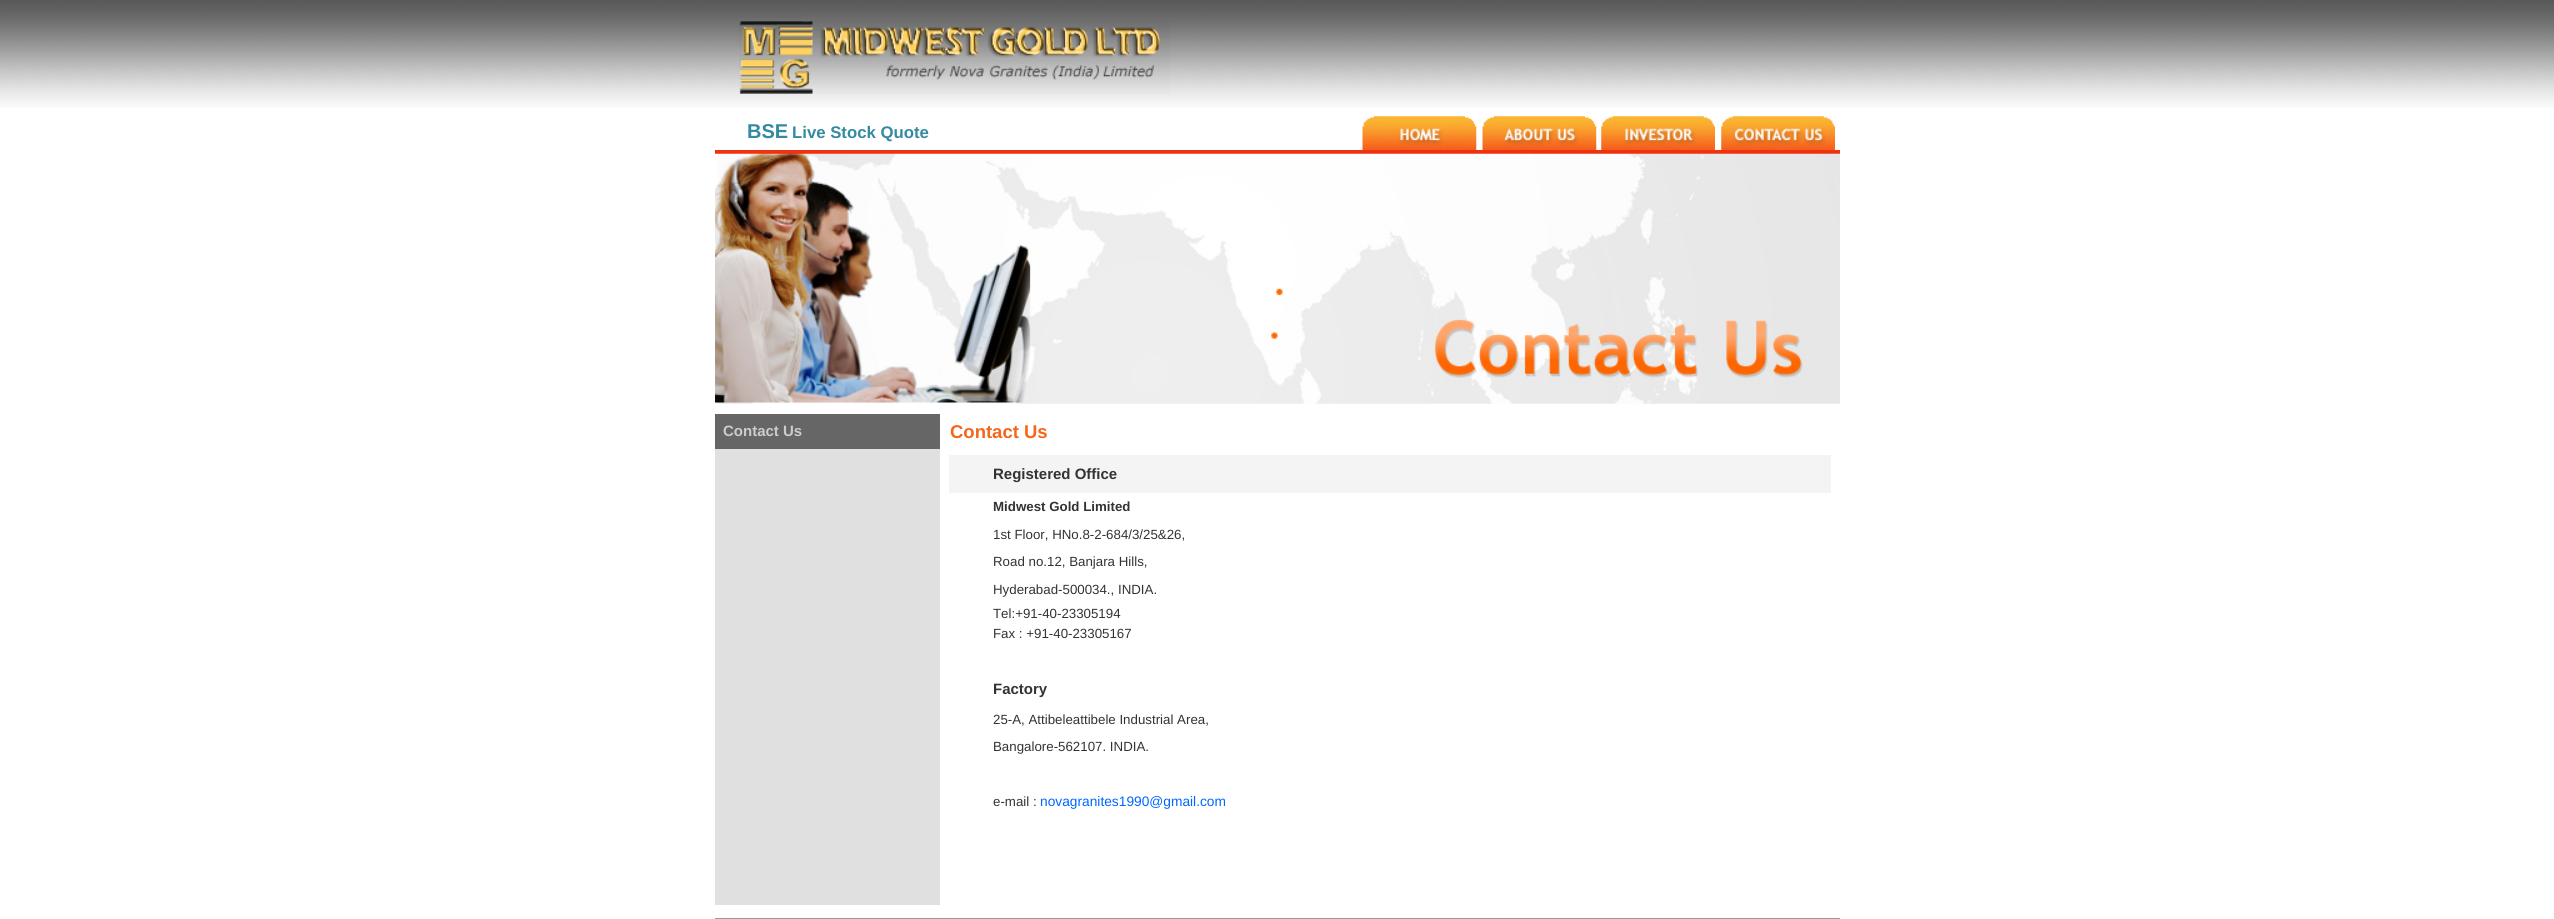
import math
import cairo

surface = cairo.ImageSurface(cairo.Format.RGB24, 2554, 919)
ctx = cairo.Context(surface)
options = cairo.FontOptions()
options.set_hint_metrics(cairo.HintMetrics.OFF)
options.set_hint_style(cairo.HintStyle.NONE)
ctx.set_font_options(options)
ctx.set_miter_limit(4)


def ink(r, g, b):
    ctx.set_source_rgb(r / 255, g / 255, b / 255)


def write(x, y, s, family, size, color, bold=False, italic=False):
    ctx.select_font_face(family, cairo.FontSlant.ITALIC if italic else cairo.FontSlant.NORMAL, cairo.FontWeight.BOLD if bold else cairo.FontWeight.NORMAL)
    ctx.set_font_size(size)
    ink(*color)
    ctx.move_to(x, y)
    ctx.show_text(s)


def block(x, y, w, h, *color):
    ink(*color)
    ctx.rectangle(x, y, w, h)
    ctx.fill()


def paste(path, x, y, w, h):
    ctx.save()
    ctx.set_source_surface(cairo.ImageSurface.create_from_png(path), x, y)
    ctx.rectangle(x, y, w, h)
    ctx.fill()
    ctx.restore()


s1 = dict(family="Liberation Sans", size=20, color=(52, 138, 160), bold=True)
s2 = dict(family="Liberation Sans", size=16.75, color=(52, 138, 160), bold=True)
s3 = dict(family="Liberation Sans", size=15, color=(204, 204, 204), bold=True)
s4 = dict(family="Liberation Sans", size=18.5, color=(245, 102, 26), bold=True)
s5 = dict(family="Liberation Sans", size=15, color=(51, 51, 51), bold=True)
s6 = dict(family="Liberation Sans", size=13.3, color=(51, 51, 51), bold=True)
s7 = dict(family="Liberation Sans", size=13.3, color=(51, 51, 51))
s8 = dict(family="Liberation Sans", size=13.75, color=(0, 102, 255))

ink(255, 255, 255)
ctx.paint()
paste("pic1.png", 0, 0, 2554, 108)
paste("pic2.png", 739, 21, 431, 73)
write(747, 138, "BSE", **s1)
write(792, 138, "Live Stock Quote", **s2)
paste("pic3.png", 1362, 116, 115, 34)
paste("pic4.png", 1482, 116, 115, 34)
paste("pic5.png", 1601, 116, 114, 34)
paste("pic6.png", 1721, 116, 114, 34)
block(715, 150, 1125, 4, 239, 49, 13)
paste("pic7.png", 715, 153, 1125, 251)
block(715, 449, 225, 456, 224, 224, 224)
block(715, 414, 225, 35, 102, 102, 102)
write(723, 436, "Contact Us", **s3)
write(950, 438, "Contact Us", **s4)
block(949, 455, 882, 38, 244, 244, 244)
write(993, 479, "Registered Office", **s5)
write(993, 511, "Midwest Gold Limited", **s6)
write(993, 539, "1st Floor, HNo.8-2-684/3/25&26,", **s7)
write(993, 566, "Road no.12, Banjara Hills,", **s7)
write(993, 594, "Hyderabad-500034., INDIA.", **s7)
write(993, 618, "Tel:+91-40-23305194", **s7)
write(993, 638, "Fax : +91-40-23305167", **s7)
write(993, 694, "Factory", **s5)
write(993, 724, "25-A, Attibeleattibele Industrial Area,", **s7)
write(993, 751, "Bangalore-562107. INDIA.", **s7)
write(993, 806, "e-mail :", **s7)
write(1040, 806, "novagranites1990@gmail.com", **s8)
block(715, 918, 1125, 1, 153, 153, 153)
surface.write_to_png("screenshot.png")
